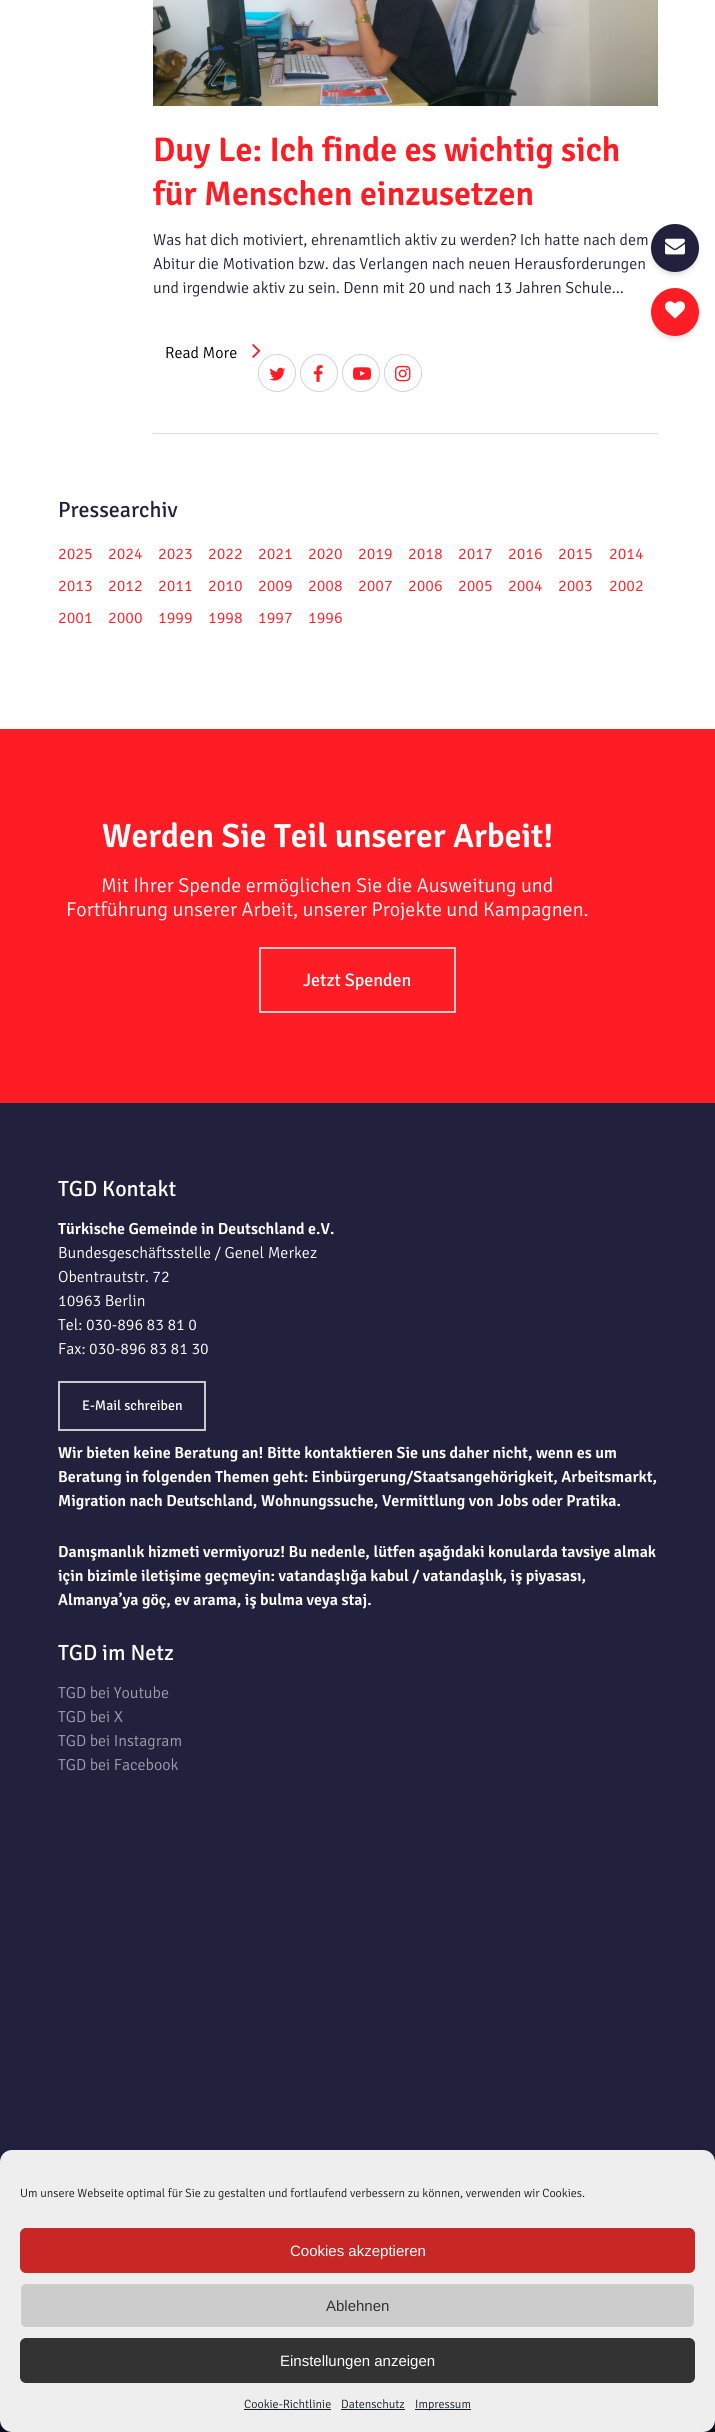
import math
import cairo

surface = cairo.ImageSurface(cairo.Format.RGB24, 715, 2432)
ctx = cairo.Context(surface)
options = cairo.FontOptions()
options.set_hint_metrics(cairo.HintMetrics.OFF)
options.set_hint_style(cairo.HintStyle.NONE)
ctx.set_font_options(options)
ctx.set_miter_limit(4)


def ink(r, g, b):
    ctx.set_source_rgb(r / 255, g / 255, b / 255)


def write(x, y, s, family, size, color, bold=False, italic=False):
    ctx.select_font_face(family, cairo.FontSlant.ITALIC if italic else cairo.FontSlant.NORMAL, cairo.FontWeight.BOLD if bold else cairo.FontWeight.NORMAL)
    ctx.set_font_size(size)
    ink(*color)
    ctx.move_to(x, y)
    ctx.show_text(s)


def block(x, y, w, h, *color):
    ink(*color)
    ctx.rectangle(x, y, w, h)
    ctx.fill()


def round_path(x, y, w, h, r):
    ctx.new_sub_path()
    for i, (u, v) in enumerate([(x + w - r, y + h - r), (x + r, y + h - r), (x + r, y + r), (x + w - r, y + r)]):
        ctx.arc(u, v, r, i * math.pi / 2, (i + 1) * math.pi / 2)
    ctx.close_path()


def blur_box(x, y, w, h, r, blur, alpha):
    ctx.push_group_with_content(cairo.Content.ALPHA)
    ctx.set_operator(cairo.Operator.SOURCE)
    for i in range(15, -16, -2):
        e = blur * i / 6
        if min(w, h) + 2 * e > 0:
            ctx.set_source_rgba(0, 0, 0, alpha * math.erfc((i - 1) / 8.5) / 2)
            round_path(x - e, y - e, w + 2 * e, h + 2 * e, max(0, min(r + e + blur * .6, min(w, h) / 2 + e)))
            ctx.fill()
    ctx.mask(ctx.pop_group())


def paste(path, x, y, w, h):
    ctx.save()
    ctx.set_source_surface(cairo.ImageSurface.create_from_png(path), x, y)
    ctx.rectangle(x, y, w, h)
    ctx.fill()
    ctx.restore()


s1 = dict(family="Signika SemiBold", size=34, color=(255, 29, 37))
s2 = dict(family="Signika Light", size=16, color=(33, 33, 61))
s3 = dict(family="Signika Light", size=16, color=(0, 0, 0))
s4 = dict(family="Signika", size=22, color=(33, 33, 61))
s5 = dict(family="Signika Light", size=16, color=(255, 29, 37))
s6 = dict(family="Signika SemiBold", size=33.6, color=(255, 255, 255))
s7 = dict(family="Signika Light", size=20, color=(255, 255, 255))
s8 = dict(family="Signika", size=18, color=(255, 255, 255))
s9 = dict(family="Signika", size=22, color=(255, 255, 255))
s10 = dict(family="Signika SemiBold", size=16, color=(255, 255, 255))
s11 = dict(family="Signika Light", size=16, color=(255, 255, 255))
s12 = dict(family="Signika", size=14, color=(255, 255, 255))
s13 = dict(family="Signika Light", size=16, color=(158, 158, 170))
s14 = dict(family="Signika Light", size=12, color=(25, 30, 35))
s15 = dict(family="Liberation Sans", size=15, color=(255, 255, 255))
s16 = dict(family="Liberation Sans", size=15, color=(51, 51, 51))

ink(255, 255, 255)
ctx.paint()
block(153, 433, 505, 1, 221, 221, 221)
paste("pic1.png", 153, 0, 505, 106)
write(153, 161, "Duy Le: Ich finde es wichtig sich", **s1)
write(153, 205, "für Menschen einzusetzen", **s1)
write(153, 245, "Was hat dich motiviert, ehrenamtlich aktiv zu werden? Ich hatte nach dem", **s2)
write(153, 269, "Abitur die Motivation bzw. das Verlangen nach neuen Herausforderungen", **s2)
write(153, 293, "und irgendwie aktiv zu sein. Denn mit 20 und nach 13 Jahren Schule…", **s2)
write(165, 358, "Read More", **s3)
paste("pic2.png", 252, 344, 9, 14)
write(58, 517, "Pressearchiv", **s4)
write(58, 559, "2025", **s5)
write(108, 559, "2024", **s5)
write(158, 559, "2023", **s5)
write(208, 559, "2022", **s5)
write(258, 559, "2021", **s5)
write(308, 559, "2020", **s5)
write(358, 559, "2019", **s5)
write(408, 559, "2018", **s5)
write(458, 559, "2017", **s5)
write(508, 559, "2016", **s5)
write(558, 559, "2015", **s5)
write(609, 559, "2014", **s5)
write(58, 591, "2013", **s5)
write(108, 591, "2012", **s5)
write(158, 591, "2011", **s5)
write(208, 591, "2010", **s5)
write(258, 591, "2009", **s5)
write(308, 591, "2008", **s5)
write(358, 591, "2007", **s5)
write(408, 591, "2006", **s5)
write(458, 591, "2005", **s5)
write(508, 591, "2004", **s5)
write(558, 591, "2003", **s5)
write(609, 591, "2002", **s5)
write(58, 623, "2001", **s5)
write(108, 623, "2000", **s5)
write(158, 623, "1999", **s5)
write(208, 623, "1998", **s5)
write(258, 623, "1997", **s5)
write(308, 623, "1996", **s5)
block(0, 729, 715, 374, 255, 29, 37)
write(102, 847, "Werden Sie Teil unserer Arbeit!", **s6)
write(101, 892, "Mit Ihrer Spende ermöglichen Sie die Ausweitung und", **s7)
write(66, 916, "Fortführung unserer Arbeit, unserer Projekte und Kampagnen.", **s7)
ctx.rectangle(260, 948, 195, 64)
ink(255, 199, 201)
ctx.stroke()
write(303, 986, "Jetzt Spenden", **s8)
block(0, 1103, 715, 1059, 33, 33, 61)
write(58, 1196, "TGD Kontakt", **s9)
write(58, 1234, "Türkische Gemeinde in Deutschland e.V.", **s10)
write(58, 1258, "Bundesgeschäftsstelle / Genel Merkez", **s11)
write(58, 1282, "Obentrautstr. 72", **s11)
write(58, 1306, "10963 Berlin", **s11)
write(58, 1330, "Tel: 030-896 83 81 0", **s11)
write(58, 1354, "Fax: 030-896 83 81 30", **s11)
ctx.rectangle(59, 1382, 146, 48)
ink(200, 200, 207)
ctx.stroke()
write(82, 1410, "E-Mail schreiben", **s12)
write(58, 1458, "Wir bieten keine Beratung an! Bitte kontaktieren Sie uns daher nicht, wenn es um", **s10)
write(58, 1482, "Beratung in folgenden Themen geht: Einbürgerung/Staatsangehörigkeit, Arbeitsmarkt,", **s10)
write(58, 1506, "Migration nach Deutschland, Wohnungssuche, Vermittlung von Jobs oder Pratika.", **s10)
write(58, 1557, "Danışmanlık hizmeti vermiyoruz! Bu nedenle, lütfen aşağıdaki konularda tavsiye almak", **s10)
write(58, 1581, "için bizimle iletişime geçmeyin: vatandaşlığa kabul / vatandaşlık, iş piyasası,", **s10)
write(58, 1605, "Almanya’ya göç, ev arama, iş bulma veya staj.", **s10)
write(58, 1660, "TGD im Netz", **s9)
write(58, 1698, "TGD bei Youtube", **s13)
write(58, 1722, "TGD bei X", **s13)
write(58, 1746, "TGD bei Instagram", **s13)
write(58, 1770, "TGD bei Facebook", **s13)
block(0, 2420, 715, 12, 14, 14, 35)
ink(0, 0, 0)
blur_box(652, 227, 46, 46, 23, 2, 0.06)
blur_box(652, 229, 46, 46, 23, 3, 0.1)
ink(33, 33, 61)
ctx.arc(675, 248, 24, 0, 2 * math.pi)
ctx.fill()
paste("pic3.png", 665, 238, 20, 17)
ink(0, 0, 0)
blur_box(652, 291, 46, 46, 23, 2, 0.06)
blur_box(652, 293, 46, 46, 23, 3, 0.1)
ink(255, 29, 37)
ctx.arc(675, 312, 24, 0, 2 * math.pi)
ctx.fill()
paste("pic4.png", 665, 301, 20, 18)
ctx.arc(277, 373, 18.5, 0, 2 * math.pi)
ink(212, 211, 216)
ctx.set_line_width(1)
ctx.stroke()
paste("pic5.png", 269, 367, 17, 14)
ctx.arc(319, 373, 18.5, 0, 2 * math.pi)
ctx.stroke()
paste("pic6.png", 313, 365, 10, 17)
ctx.arc(361, 373, 18.5, 0, 2 * math.pi)
ctx.stroke()
paste("pic7.png", 353, 367, 18, 13)
ctx.arc(403, 373, 18.5, 0, 2 * math.pi)
ctx.stroke()
paste("pic8.png", 395, 365, 16, 17)
ink(0, 0, 0)
blur_box(0, 2156, 715, 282, 12, 3, 0.23)
blur_box(0, 2160, 715, 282, 12, 10, 0.19)
ink(238, 238, 238)
round_path(0, 2150, 715, 282, 12)
ctx.fill()
write(20, 2197, "Um unsere Webseite optimal für Sie zu gestalten und fortlaufend verbessern zu können, verwenden wir Cookies.", **s14)
ink(201, 38, 38)
round_path(20.5, 2228.5, 674, 44, 5.5)
ctx.fill_preserve()
ctx.stroke()
write(290, 2256, "Cookies akzeptieren", **s15)
ink(204, 204, 204)
round_path(20.5, 2283.5, 674, 44, 5.5)
ctx.fill_preserve()
ink(241, 241, 241)
ctx.stroke()
write(326, 2311, "Ablehnen", **s16)
round_path(20.5, 2338.5, 674, 44, 5.5)
ctx.fill_preserve()
ctx.stroke()
write(280, 2366, "Einstellungen anzeigen", **s15)
write(244, 2408, "Cookie-Richtlinie", **s14)
block(244, 2409, 87, 1, 25, 30, 35)
write(341, 2408, "Datenschutz", **s14)
block(341, 2409, 64, 1, 25, 30, 35)
block(415, 2409, 56, 1, 25, 30, 35)
write(415, 2408, "Impressum", **s14)
surface.write_to_png("screenshot.png")
